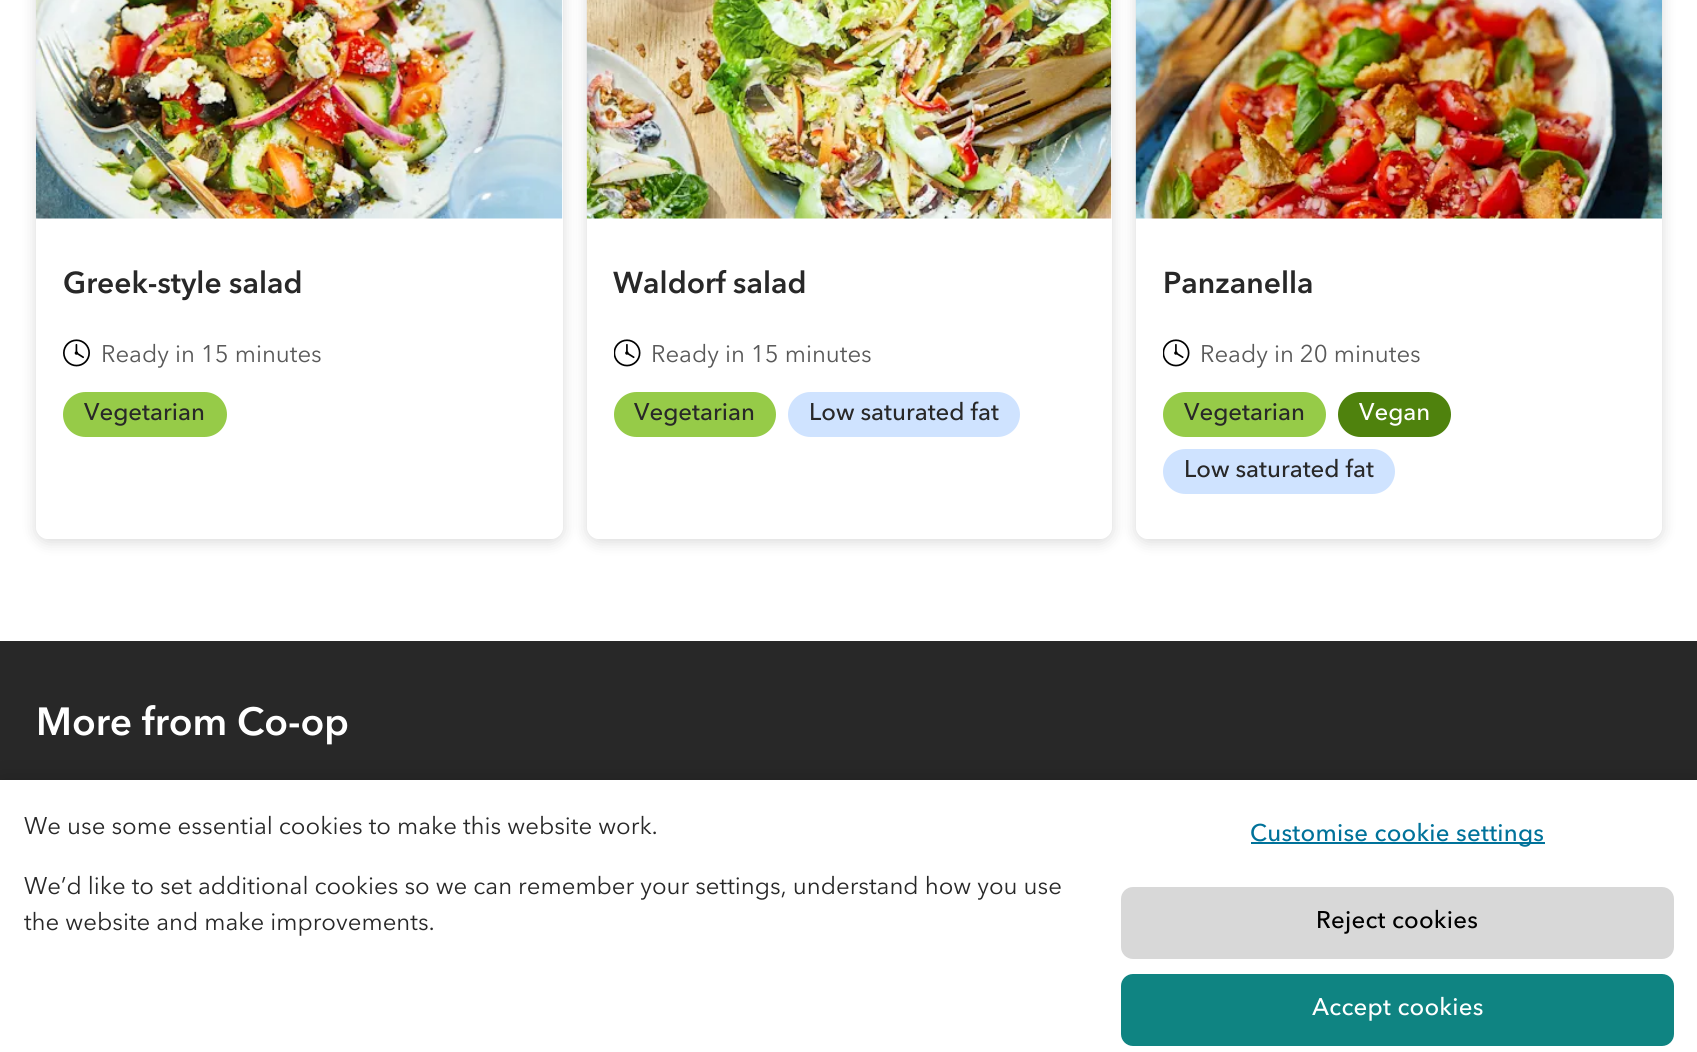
import math
import cairo

surface = cairo.ImageSurface(cairo.Format.RGB24, 1697, 1052)
ctx = cairo.Context(surface)
options = cairo.FontOptions()
options.set_hint_metrics(cairo.HintMetrics.OFF)
options.set_hint_style(cairo.HintStyle.NONE)
ctx.set_font_options(options)
ctx.set_miter_limit(4)


def ink(r, g, b):
    ctx.set_source_rgb(r / 255, g / 255, b / 255)


def write(x, y, s, family, size, color, bold=False, italic=False):
    ctx.select_font_face(family, cairo.FontSlant.ITALIC if italic else cairo.FontSlant.NORMAL, cairo.FontWeight.BOLD if bold else cairo.FontWeight.NORMAL)
    ctx.set_font_size(size)
    ink(*color)
    ctx.move_to(x, y)
    ctx.show_text(s)


def write_spaced(x, y, s, letter, word):
    ctx.move_to(x, y)
    for ch in s:
        ctx.show_text(ch)
        ctx.rel_move_to(letter + word * (ch == ' '), 0)


def block(x, y, w, h, *color):
    ink(*color)
    ctx.rectangle(x, y, w, h)
    ctx.fill()


def round_path(x, y, w, h, r):
    ctx.new_sub_path()
    for i, (u, v) in enumerate([(x + w - r, y + h - r), (x + r, y + h - r), (x + r, y + r), (x + w - r, y + r)]):
        ctx.arc(u, v, r, i * math.pi / 2, (i + 1) * math.pi / 2)
    ctx.close_path()


def blur_box(x, y, w, h, r, blur, alpha):
    ctx.push_group_with_content(cairo.Content.ALPHA)
    ctx.set_operator(cairo.Operator.SOURCE)
    for i in range(15, -16, -2):
        e = blur * i / 6
        if min(w, h) + 2 * e > 0:
            ctx.set_source_rgba(0, 0, 0, alpha * math.erfc((i - 1) / 8.5) / 2)
            round_path(x - e, y - e, w + 2 * e, h + 2 * e, max(0, min(r + e + blur * .6, min(w, h) / 2 + e)))
            ctx.fill()
    ctx.mask(ctx.pop_group())


def paste(path, x, y, w, h):
    ctx.save()
    ctx.set_source_surface(cairo.ImageSurface.create_from_png(path), x, y)
    ctx.rectangle(x, y, w, h)
    ctx.fill()
    ctx.restore()


s1 = dict(family="Avenir Next", size=30, color=(40, 40, 40), bold=True)
s2 = dict(family="Avenir Next", size=24, color=(89, 89, 89))
s3 = dict(family="Avenir Next Medium", size=24, color=(40, 40, 40))
s4 = dict(family="Avenir Next Medium", size=24, color=(255, 255, 255))
s5 = dict(family="Avenir Next", size=39, color=(255, 255, 255), bold=True)
s6 = dict(family="Avenir Next", size=24, color=(40, 40, 40))

ink(255, 255, 255)
ctx.paint()
ctx.save()
ctx.set_fill_rule(cairo.FillRule.EVEN_ODD)
ctx.new_path()
ctx.move_to(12, 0)
ctx.line_to(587, 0)
ctx.line_to(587, 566)
ctx.line_to(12, 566)
ctx.close_path()
ctx.move_to(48, -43)
ctx.line_to(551, -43)
ctx.curve_to(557.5, -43, 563, -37.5, 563, -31)
ctx.line_to(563, 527)
ctx.curve_to(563, 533.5, 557.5, 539, 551, 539)
ctx.line_to(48, 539)
ctx.curve_to(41.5, 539, 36, 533.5, 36, 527)
ctx.line_to(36, -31)
ctx.curve_to(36, -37.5, 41.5, -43, 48, -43)
ctx.close_path()
ctx.clip()
ink(0, 0, 0)
blur_box(36, -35, 527, 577, 12, 7.5, 0.15)
ctx.restore()
paste("pic1.png", 36, 0, 527, 219)
write(63, 293, "Greek-style salad", **s1)
paste("pic2.png", 63, 339, 27, 28)
write(101, 362, "Ready in 15 minutes", **s2)
ink(150, 203, 72)
round_path(63, 392, 164, 45, 22.5)
ctx.fill()
write(84, 420, "Vegetarian", **s3)
ctx.save()
ctx.set_fill_rule(cairo.FillRule.EVEN_ODD)
ctx.new_path()
ctx.move_to(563, 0)
ctx.line_to(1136, 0)
ctx.line_to(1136, 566)
ctx.line_to(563, 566)
ctx.close_path()
ctx.move_to(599, -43)
ctx.line_to(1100, -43)
ctx.curve_to(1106.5, -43, 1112, -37.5, 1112, -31)
ctx.line_to(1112, 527)
ctx.curve_to(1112, 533.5, 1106.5, 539, 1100, 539)
ctx.line_to(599, 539)
ctx.curve_to(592.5, 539, 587, 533.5, 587, 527)
ctx.line_to(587, -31)
ctx.curve_to(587, -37.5, 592.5, -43, 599, -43)
ctx.close_path()
ctx.clip()
ink(0, 0, 0)
blur_box(587, -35, 525, 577, 12, 7.5, 0.15)
ctx.restore()
paste("pic3.png", 586, 0, 526, 219)
write(613, 293, "Waldorf salad", **s1)
paste("pic4.png", 614, 339, 27, 28)
write(651, 362, "Ready in 15 minutes", **s2)
ink(150, 203, 72)
round_path(614, 392, 162, 45, 22.5)
ctx.fill()
write(634, 420, "Vegetarian", **s3)
ink(207, 227, 255)
round_path(788, 392, 232, 45, 22.5)
ctx.fill()
write(809, 420, "Low saturated fat", **s3)
ctx.save()
ctx.set_fill_rule(cairo.FillRule.EVEN_ODD)
ctx.new_path()
ctx.move_to(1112, 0)
ctx.line_to(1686, 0)
ctx.line_to(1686, 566)
ctx.line_to(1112, 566)
ctx.close_path()
ctx.move_to(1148, -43)
ctx.line_to(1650, -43)
ctx.curve_to(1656.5, -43, 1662, -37.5, 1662, -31)
ctx.line_to(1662, 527)
ctx.curve_to(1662, 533.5, 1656.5, 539, 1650, 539)
ctx.line_to(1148, 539)
ctx.curve_to(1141.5, 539, 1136, 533.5, 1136, 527)
ctx.line_to(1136, -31)
ctx.curve_to(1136, -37.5, 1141.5, -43, 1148, -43)
ctx.close_path()
ctx.clip()
ink(0, 0, 0)
blur_box(1136, -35, 526, 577, 12, 7.5, 0.15)
ctx.restore()
paste("pic5.png", 1135, 0, 527, 219)
write(1163, 293, "Panzanella", **s1)
paste("pic4.png", 1163, 339, 27, 28)
write(1200, 362, "Ready in 20 minutes", **s2)
ink(150, 203, 72)
round_path(1163, 392, 163, 45, 22.5)
ctx.fill()
write(1184, 420, "Vegetarian", **s3)
ink(79, 130, 13)
round_path(1338, 392, 113, 45, 22.5)
ctx.fill()
write(1359, 420, "Vegan", **s4)
ink(207, 227, 255)
round_path(1163, 449, 232, 45, 22.5)
ctx.fill()
write(1184, 477, "Low saturated fat", **s3)
block(0, 641, 1697, 139, 40, 40, 40)
write(36, 735, "More from Co-op", **s5)
ink(0, 0, 0)
blur_box(0, 780, 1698, 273, 0, 13.5, 0.2)
block(0, 780, 1697, 272, 255, 255, 255)
write(24, 834, "We use some essential cookies to make this website work.", **s6)
write(24, 894, "We’d like to set additional cookies so we can remember your settings, understand how you use", **s6)
write(24, 930, "the website and make improvements.", **s6)
block(1251, 842, 294, 2, 0, 114, 154)
ctx.select_font_face("Avenir Next Medium")
write_spaced(1250, 841, "Customise cookie settings", 0.25, 0)
ink(216, 216, 216)
round_path(1121, 887, 553, 72, 12)
ctx.fill()
ink(0, 0, 0)
write_spaced(1316, 928, "Reject cookies", 0.25, 0)
ink(15, 132, 130)
round_path(1121, 974, 553, 72, 12)
ctx.fill()
ink(255, 255, 255)
write_spaced(1312, 1015, "Accept cookies", 0.25, 0)
surface.write_to_png("screenshot.png")
